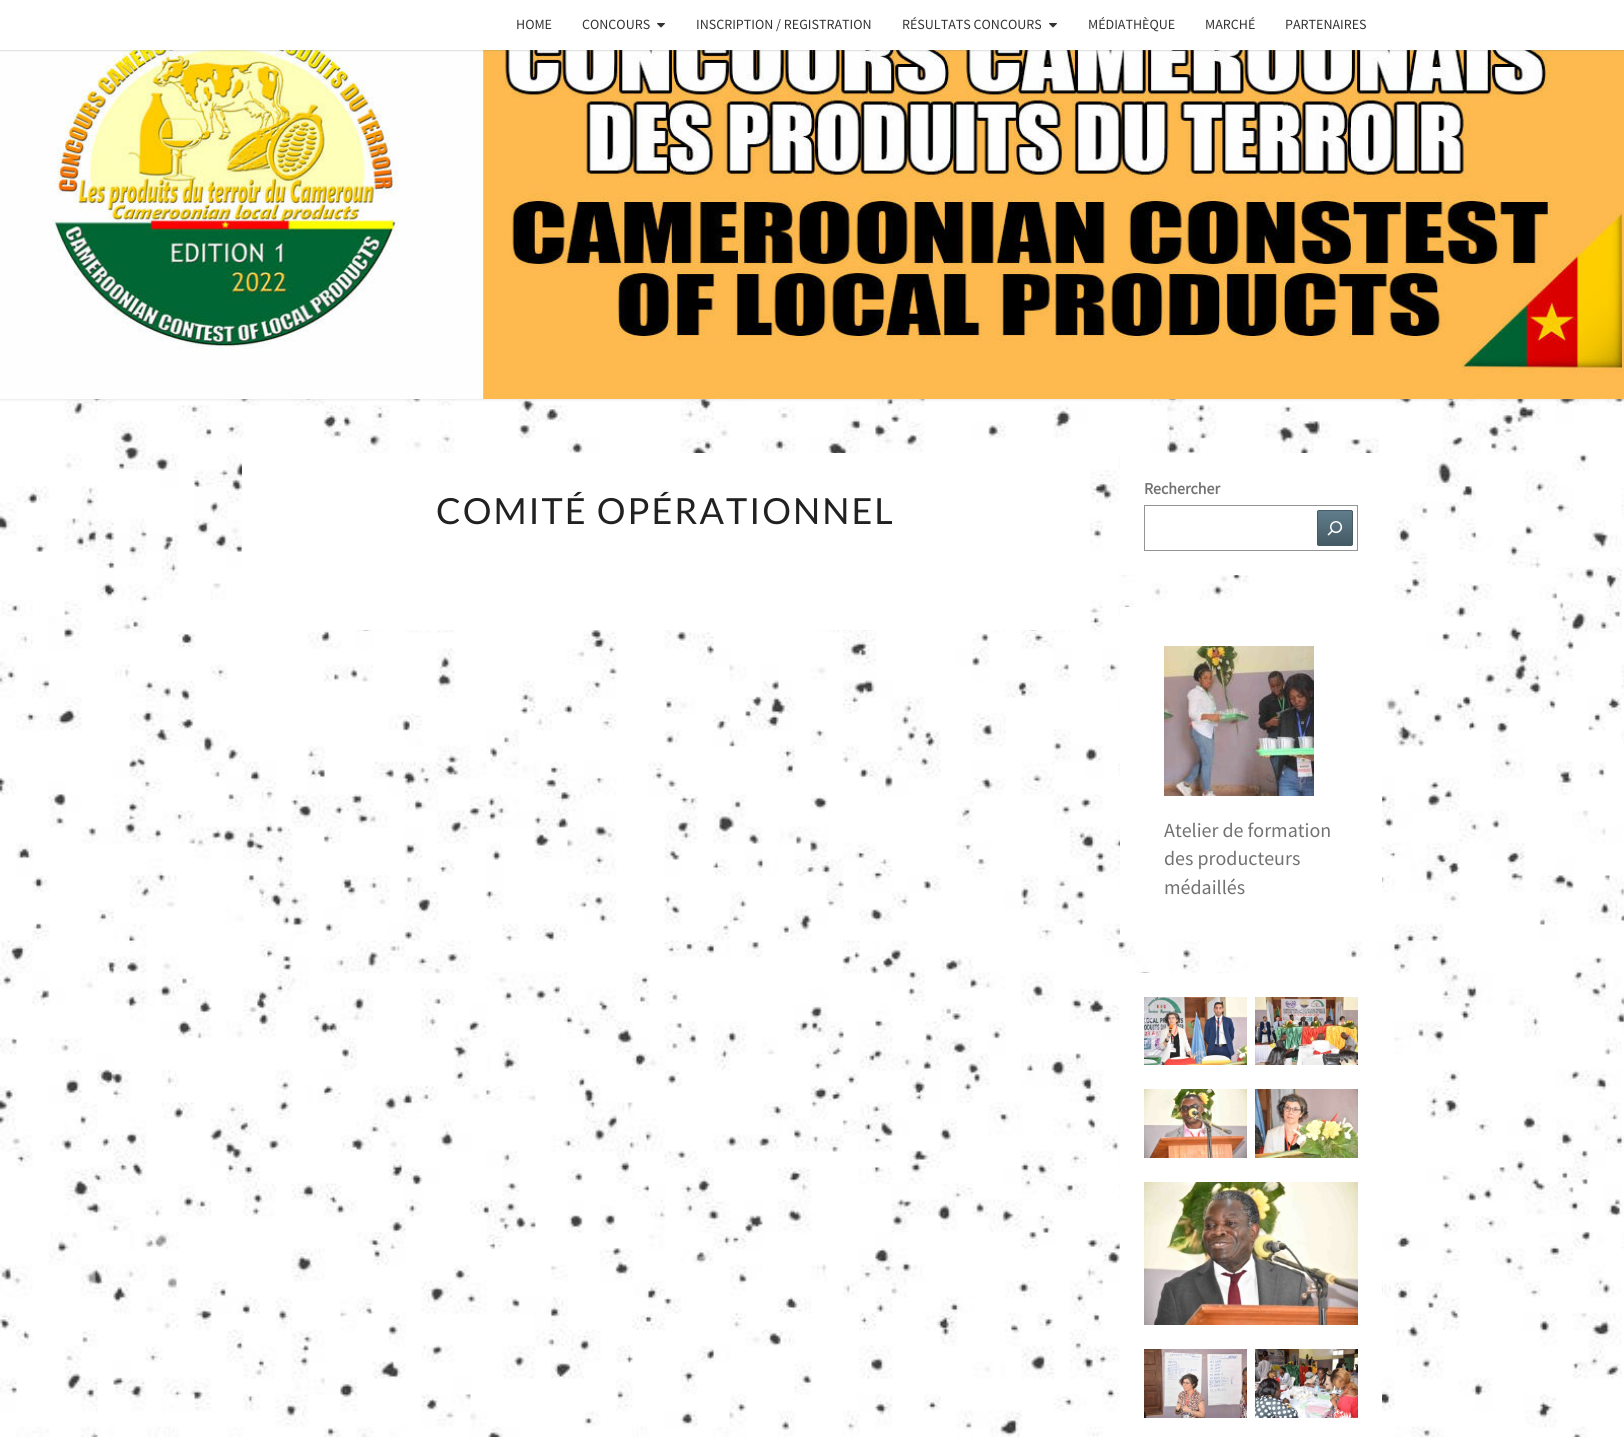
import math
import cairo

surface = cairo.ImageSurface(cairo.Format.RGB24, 1624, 1437)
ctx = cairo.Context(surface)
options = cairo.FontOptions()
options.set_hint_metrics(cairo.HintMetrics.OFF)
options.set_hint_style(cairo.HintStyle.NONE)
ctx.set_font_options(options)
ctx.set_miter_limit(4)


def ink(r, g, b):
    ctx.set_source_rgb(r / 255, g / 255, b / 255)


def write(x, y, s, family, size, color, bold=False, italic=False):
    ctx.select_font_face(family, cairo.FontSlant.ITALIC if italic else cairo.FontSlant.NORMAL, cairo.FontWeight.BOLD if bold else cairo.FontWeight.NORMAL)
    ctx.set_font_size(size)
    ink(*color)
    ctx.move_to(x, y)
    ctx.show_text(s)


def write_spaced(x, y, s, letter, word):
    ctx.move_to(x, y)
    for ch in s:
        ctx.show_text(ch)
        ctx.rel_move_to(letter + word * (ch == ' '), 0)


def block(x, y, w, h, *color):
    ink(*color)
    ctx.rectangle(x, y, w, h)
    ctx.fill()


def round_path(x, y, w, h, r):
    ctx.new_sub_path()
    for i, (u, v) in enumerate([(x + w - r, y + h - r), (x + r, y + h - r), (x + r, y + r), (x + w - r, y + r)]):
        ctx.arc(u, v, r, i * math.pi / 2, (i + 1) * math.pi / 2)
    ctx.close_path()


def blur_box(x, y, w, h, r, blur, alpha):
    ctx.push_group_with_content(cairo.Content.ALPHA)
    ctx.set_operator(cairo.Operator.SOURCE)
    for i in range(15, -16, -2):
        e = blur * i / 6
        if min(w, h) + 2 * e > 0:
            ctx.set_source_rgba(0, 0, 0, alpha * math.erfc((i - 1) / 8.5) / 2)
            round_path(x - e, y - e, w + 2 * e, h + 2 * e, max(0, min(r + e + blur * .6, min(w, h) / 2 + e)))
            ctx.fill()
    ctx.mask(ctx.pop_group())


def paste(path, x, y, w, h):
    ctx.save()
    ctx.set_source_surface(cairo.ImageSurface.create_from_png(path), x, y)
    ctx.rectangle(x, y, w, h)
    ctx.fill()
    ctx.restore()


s1 = dict(family="Source Sans Pro", size=14, color=(51, 51, 51))
s2 = dict(family="Source Sans Pro", size=16, color=(114, 114, 114), bold=True)
s3 = dict(family="Source Sans Pro", size=20, color=(114, 114, 114))

ink(255, 255, 255)
ctx.paint()
paste("pic1.png", 0, 399, 1624, 1038)
ink(182, 182, 182)
blur_box(-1, -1, 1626, 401, 0, 1, 0.3)
paste("pic2.png", 0, 50, 1624, 349)
ink(100, 100, 100)
blur_box(0, 1, 1624, 50, 0, 0.5, 0.2)
block(0, 0, 1624, 50, 255, 255, 255)
write(516, 29, "HOME", **s1)
write(582, 29, "CONCOURS", **s1)
paste("pic3.png", 657, 23, 8, 5)
write(696, 29, "INSCRIPTION / REGISTRATION", **s1)
write(902, 29, "RÉSULTATS CONCOURS", **s1)
paste("pic3.png", 1049, 23, 8, 5)
write(1088, 29, "MÉDIATHÈQUE", **s1)
write(1205, 29, "MARCHÉ", **s1)
write(1285, 29, "PARTENAIRES", **s1)
block(242, 453, 848, 177, 255, 255, 255)
ctx.select_font_face("Lato")
ctx.set_font_size(36)
ink(33, 33, 33)
write_spaced(436, 524, "COMITÉ OPÉRATIONNEL", 2, 0)
block(1120, 453, 259, 122, 255, 255, 255)
write(1144, 494, "Rechercher", **s2)
ctx.rectangle(1144.5, 505.5, 213, 45)
ink(148, 148, 148)
ctx.set_line_width(1)
ctx.stroke()
ctx.save()
round_path(1317, 510, 36, 36, 2)
ctx.clip()
gradient = cairo.LinearGradient(1335, 511, 1335, 545)
gradient.add_color_stop_rgba(0, 0.376, 0.49, 0.545, 1)
gradient.add_color_stop_rgba(1, 0.271, 0.353, 0.392, 1)
ctx.set_source(gradient)
ctx.rectangle(1317, 511, 36, 34)
ctx.fill()
ctx.restore()
round_path(1317.5, 510.5, 35, 35, 1.5)
ink(69, 90, 100)
ctx.stroke()
paste("pic4.png", 1327, 521, 16, 15)
block(1120, 607, 262, 334, 255, 255, 255)
paste("pic5.png", 1164, 646, 150, 150)
write(1164, 837, "Atelier de formation", **s3)
write(1164, 865, "des producteurs", **s3)
write(1164, 894, "médaillés", **s3)
block(1120, 973, 262, 464, 255, 255, 255)
paste("pic6.png", 1144, 997, 103, 68)
paste("pic7.png", 1255, 997, 103, 68)
paste("pic8.png", 1144, 1089, 103, 69)
paste("pic9.png", 1255, 1089, 103, 69)
paste("pic10.png", 1144, 1182, 214, 143)
paste("pic11.png", 1144, 1349, 103, 69)
paste("pic12.png", 1255, 1349, 103, 69)
surface.write_to_png("screenshot.png")
